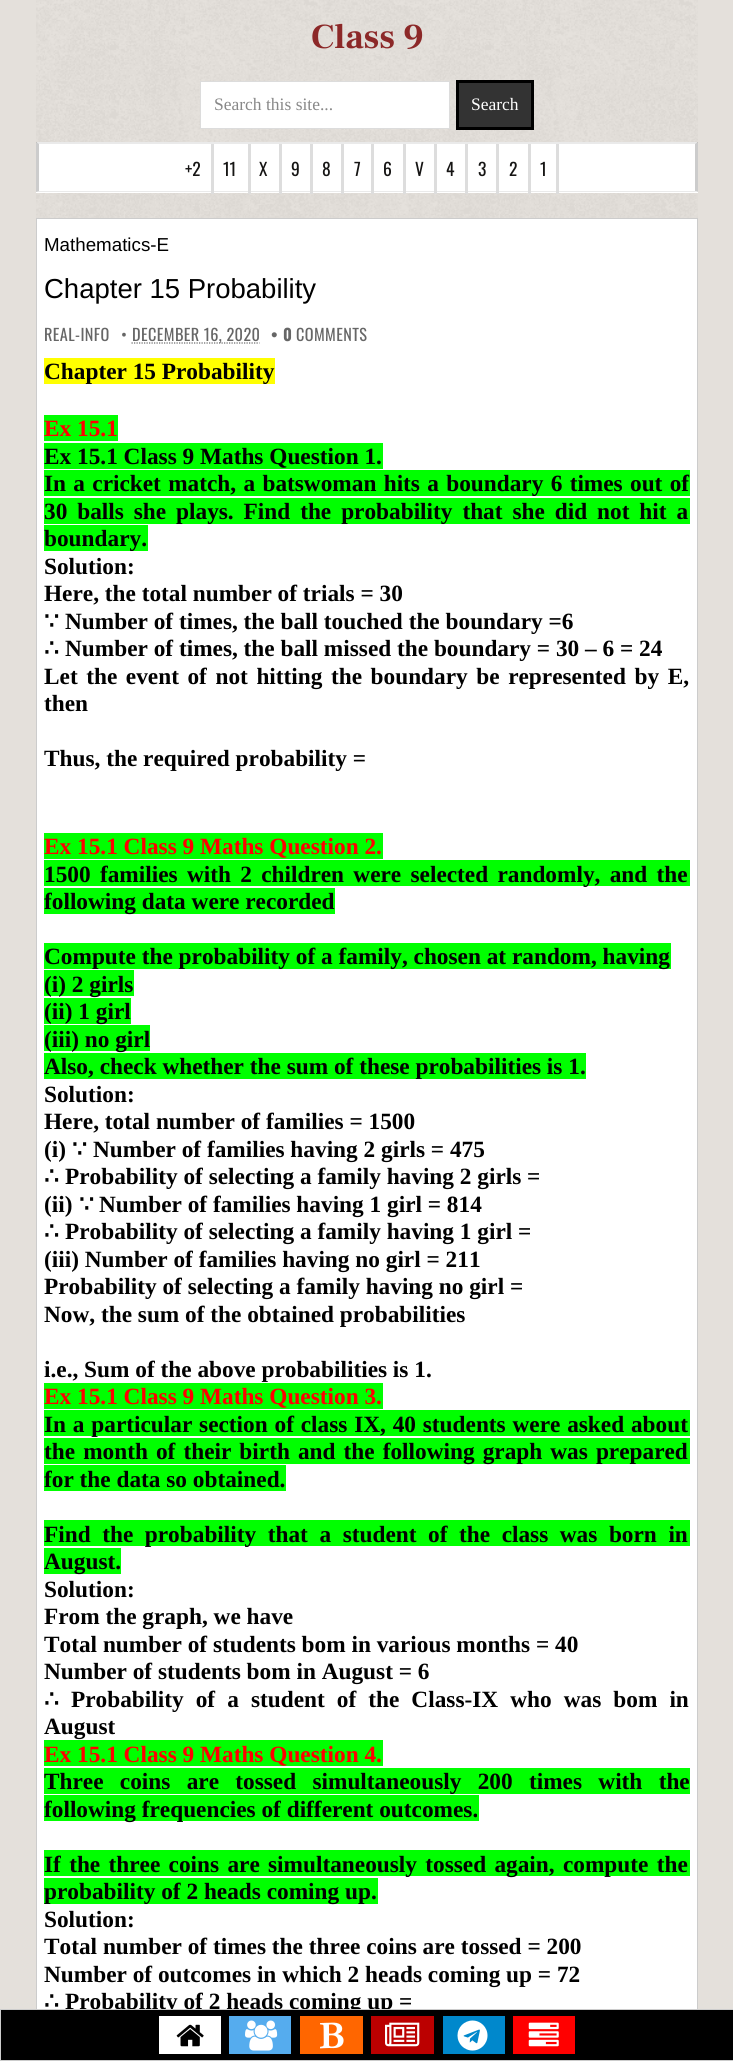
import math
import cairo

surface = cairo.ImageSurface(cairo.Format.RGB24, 733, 2061)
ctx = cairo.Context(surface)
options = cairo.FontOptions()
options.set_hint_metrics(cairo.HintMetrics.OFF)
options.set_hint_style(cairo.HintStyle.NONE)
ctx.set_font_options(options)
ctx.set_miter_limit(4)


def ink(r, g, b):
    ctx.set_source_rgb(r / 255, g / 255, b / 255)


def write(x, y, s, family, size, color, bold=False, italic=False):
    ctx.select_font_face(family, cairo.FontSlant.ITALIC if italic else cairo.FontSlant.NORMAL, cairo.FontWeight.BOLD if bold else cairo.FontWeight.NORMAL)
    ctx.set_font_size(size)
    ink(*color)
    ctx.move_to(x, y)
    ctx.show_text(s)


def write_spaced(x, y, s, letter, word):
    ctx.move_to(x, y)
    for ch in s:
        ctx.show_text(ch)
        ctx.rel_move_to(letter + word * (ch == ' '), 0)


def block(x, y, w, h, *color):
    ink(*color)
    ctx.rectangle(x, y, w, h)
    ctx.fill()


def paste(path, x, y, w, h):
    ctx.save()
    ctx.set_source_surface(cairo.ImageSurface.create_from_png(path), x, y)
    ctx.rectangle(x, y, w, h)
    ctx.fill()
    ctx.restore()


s1 = dict(family="Frank Ruhl Libre", size=35, color=(140, 40, 40), bold=True)
s2 = dict(family="Liberation Serif", size=17.5, color=(136, 136, 136))
s3 = dict(family="Liberation Serif", size=17.5, color=(255, 255, 255))
s4 = dict(family="Oswald", size=17.5, color=(22, 21, 20))
s5 = dict(family="Liberation Sans", size=18.75, color=(0, 0, 0))
s6 = dict(family="Liberation Sans", size=27.5, color=(0, 0, 0))
s7 = dict(family="Liberation Sans", size=18.75, color=(102, 102, 102))
s8 = dict(family="Liberation Serif", size=23.3, color=(0, 0, 0), bold=True)
s9 = dict(family="Liberation Serif", size=23.3, color=(255, 0, 0), bold=True)
s10 = dict(family="DejaVu Sans", size=23.3, color=(0, 0, 0), bold=True)

ink(228, 224, 219)
ctx.paint()
paste("pic1.png", 36, 0, 662, 218)
write(311, 48, "Class 9", **s1)
ink(255, 255, 255)
ctx.rectangle(200.5, 81.5, 249, 47)
ctx.fill_preserve()
ink(220, 220, 220)
ctx.set_line_width(1)
ctx.stroke()
write(214, 110, "Search this site...", **s2)
ink(51, 51, 51)
ctx.rectangle(457.5, 81.5, 75, 47)
ctx.fill_preserve()
ink(0, 0, 0)
ctx.set_line_width(3)
ctx.stroke()
write(471, 110, "Search", **s3)
block(36, 143, 662, 50, 255, 255, 255)
ink(234, 234, 234)
ctx.new_path()
ctx.move_to(36, 142)
ctx.line_to(698, 142)
ctx.line_to(695, 144)
ctx.line_to(39, 144)
ctx.close_path()
ctx.fill()
ctx.set_source_rgba(0, 0, 0, 0.2)
ctx.new_path()
ctx.move_to(698, 142)
ctx.line_to(698, 192)
ctx.line_to(695, 191)
ctx.line_to(695, 144)
ctx.close_path()
ctx.fill()
ink(234, 234, 234)
ctx.new_path()
ctx.move_to(698, 192)
ctx.line_to(36, 192)
ctx.line_to(39, 191)
ctx.line_to(695, 191)
ctx.close_path()
ctx.fill()
ctx.set_source_rgba(0, 0, 0, 0.2)
ctx.new_path()
ctx.move_to(36, 192)
ctx.line_to(36, 142)
ctx.line_to(39, 144)
ctx.line_to(39, 191)
ctx.close_path()
ctx.fill()
block(211, 144, 3, 50, 221, 221, 221)
write(185, 176, "+2", **s4)
block(248, 144, 3, 50, 221, 221, 221)
write(223, 176, "11", **s4)
block(279, 144, 3, 50, 221, 221, 221)
write(259, 176, "X", **s4)
block(310, 144, 3, 50, 221, 221, 221)
write(291, 176, "9", **s4)
block(341, 144, 3, 50, 221, 221, 221)
write(322, 176, "8", **s4)
block(371, 144, 3, 50, 221, 221, 221)
write(354, 176, "7", **s4)
block(403, 144, 3, 50, 221, 221, 221)
write(383, 176, "6", **s4)
block(434, 144, 3, 50, 221, 221, 221)
write(415, 176, "V", **s4)
block(465, 144, 3, 50, 221, 221, 221)
write(446, 176, "4", **s4)
block(496, 144, 3, 50, 221, 221, 221)
write(478, 176, "3", **s4)
block(528, 144, 3, 50, 221, 221, 221)
write(509, 176, "2", **s4)
block(556, 144, 3, 50, 221, 221, 221)
write(540, 176, "1", **s4)
block(37, 219, 660, 1790, 255, 255, 255)
ctx.rectangle(36.5, 218.5, 661, 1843)
ink(204, 204, 204)
ctx.set_line_width(1)
ctx.stroke()
write(44, 251, "Mathematics-E", **s5)
write(44, 298, "Chapter 15 Probability", **s6)
ctx.select_font_face("Oswald")
ctx.set_font_size(16.25)
ink(102, 102, 102)
write_spaced(44, 341, "REAL-INFO", 0.4, 0)
write_spaced(121, 341, "•", 0.4, 0)
ctx.new_path()
ctx.move_to(131.5, 343)
ctx.line_to(259.5, 343)
ctx.set_line_width(1.2)
ctx.set_dash([1.25, 1.25])
ctx.stroke()
write_spaced(132, 341, "DECEMBER 16, 2020", 0.4, 0)
write(271, 341, "•", **s7)
ctx.select_font_face("Oswald", cairo.FontSlant.NORMAL, cairo.FontWeight.BOLD)
ctx.set_font_size(16.25)
write_spaced(283, 341, "0", 0.4, 0)
ctx.select_font_face("Oswald")
write_spaced(296, 341, "COMMENTS", 0.4, 0)
block(44, 358, 231, 26, 255, 255, 0)
write(44, 379, "Chapter 15 Probability", **s8)
block(44, 415, 74, 26, 0, 255, 0)
write(44, 436, "Ex 15.1", **s9)
block(44, 443, 339, 26, 0, 255, 0)
write(44, 464, "Ex 15.1 Class 9 Maths Question 1.", **s8)
block(44, 470, 646, 26, 0, 255, 0)
ink(0, 0, 0)
write_spaced(44, 491, "In a cricket match, a batswoman hits a boundary 6 times out of", 0, 1.5)
block(44, 498, 646, 26, 0, 255, 0)
ink(0, 0, 0)
write_spaced(44, 519, "30 balls she plays. Find the probability that she did not hit a", 0, 4.1)
block(44, 525, 104, 26, 0, 255, 0)
write(44, 546, "boundary.", **s8)
write(44, 574, "Solution:", **s8)
write(44, 601, "Here, the total number of trials = 30", **s8)
write(44, 629, "∵", **s10)
write(65, 629, "Number of times, the ball touched the boundary =6", **s8)
write(44, 656, "∴", **s10)
write(65, 656, "Number of times, the ball missed the boundary = 30 – 6 = 24", **s8)
write_spaced(44, 684, "Let the event of not hitting the boundary be represented by E,", 0, 2.75)
write(44, 711, "then", **s8)
write(44, 766, "Thus, the required probability =", **s8)
block(44, 833, 339, 26, 0, 255, 0)
write(44, 854, "Ex 15.1 Class 9 Maths Question 2.", **s9)
block(44, 860, 646, 26, 0, 255, 0)
ink(0, 0, 0)
write_spaced(44, 882, "1500 families with 2 children were selected randomly, and the", 0, 3.5)
block(44, 888, 291, 26, 0, 255, 0)
write(44, 909, "following data were recorded", **s8)
block(44, 943, 627, 26, 0, 255, 0)
write(44, 964, "Compute the probability of a family, chosen at random, having", **s8)
block(44, 970, 90, 26, 0, 255, 0)
write(44, 992, "(i) 2 girls", **s8)
block(44, 998, 87, 26, 0, 255, 0)
write(44, 1019, "(ii) 1 girl", **s8)
block(44, 1025, 106, 26, 0, 255, 0)
write(44, 1047, "(iii) no girl", **s8)
block(44, 1053, 542, 26, 0, 255, 0)
write(44, 1074, "Also, check whether the sum of these probabilities is 1.", **s8)
write(44, 1102, "Solution:", **s8)
write(44, 1129, "Here, total number of families = 1500", **s8)
write(44, 1157, "(i)", **s8)
write(72, 1157, "∵", **s10)
write(93, 1157, "Number of families having 2 girls = 475", **s8)
write(44, 1184, "∴", **s10)
write(65, 1184, "Probability of selecting a family having 2 girls =", **s8)
write(44, 1212, "(ii)", **s8)
write(79, 1212, "∵", **s10)
write(99, 1212, "Number of families having 1 girl = 814", **s8)
write(44, 1239, "∴", **s10)
write(65, 1239, "Probability of selecting a family having 1 girl =", **s8)
write(44, 1267, "(iii) Number of families having no girl = 211", **s8)
write(44, 1294, "Probability of selecting a family having no girl =", **s8)
write(44, 1322, "Now, the sum of the obtained probabilities", **s8)
write(44, 1377, "i.e., Sum of the above probabilities is 1.", **s8)
block(44, 1383, 339, 26, 0, 255, 0)
write(44, 1404, "Ex 15.1 Class 9 Maths Question 3.", **s9)
block(44, 1410, 646, 26, 0, 255, 0)
ink(0, 0, 0)
write_spaced(44, 1432, "In a particular section of class IX, 40 students were asked about", 0, 1)
block(44, 1438, 646, 26, 0, 255, 0)
ink(0, 0, 0)
write_spaced(44, 1459, "the month of their birth and the following graph was prepared", 0, 2.25)
block(44, 1465, 242, 26, 0, 255, 0)
write(44, 1487, "for the data so obtained.", **s8)
block(44, 1520, 646, 26, 0, 255, 0)
ink(0, 0, 0)
write_spaced(44, 1542, "Find the probability that a student of the class was born in", 0, 5.75)
block(44, 1548, 77, 26, 0, 255, 0)
write(44, 1569, "August.", **s8)
write(44, 1597, "Solution:", **s8)
write(44, 1624, "From the graph, we have", **s8)
write(44, 1652, "Total number of students bom in various months = 40", **s8)
write(44, 1679, "Number of students bom in August = 6", **s8)
write(44, 1707, "∴", **s10)
ctx.select_font_face("Liberation Serif", cairo.FontSlant.NORMAL, cairo.FontWeight.BOLD)
write_spaced(71, 1707, "Probability of a student of the Class-IX who was bom in", 0, 6.25)
write(44, 1734, "August", **s8)
block(44, 1740, 339, 26, 0, 255, 0)
write(44, 1762, "Ex 15.1 Class 9 Maths Question 4.", **s9)
block(44, 1768, 646, 26, 0, 255, 0)
ink(0, 0, 0)
write_spaced(44, 1789, "Three coins are tossed simultaneously 200 times with the", 0, 10.5)
block(44, 1795, 435, 26, 0, 255, 0)
write(44, 1817, "following frequencies of different outcomes.", **s8)
block(44, 1850, 646, 26, 0, 255, 0)
ink(0, 0, 0)
write_spaced(44, 1872, "If the three coins are simultaneously tossed again, compute the", 0, 2.5)
block(44, 1878, 334, 26, 0, 255, 0)
write(44, 1899, "probability of 2 heads coming up.", **s8)
write(44, 1927, "Solution:", **s8)
write(44, 1954, "Total number of times the three coins are tossed = 200", **s8)
write(44, 1982, "Number of outcomes in which 2 heads coming up = 72", **s8)
write(44, 2009, "∴", **s10)
write(65, 2009, "Probability of 2 heads coming up =", **s8)
ctx.rectangle(0.5, 2009.5, 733, 51)
ctx.fill_preserve()
ink(204, 204, 204)
ctx.set_line_width(1)
ctx.set_dash([])
ctx.stroke()
block(159, 2016, 62, 38, 255, 255, 255)
paste("pic2.png", 176, 2024, 28, 23)
block(229, 2016, 62, 38, 85, 172, 238)
paste("pic3.png", 245, 2020, 33, 31)
block(300, 2016, 63, 38, 255, 102, 0)
paste("pic4.png", 320, 2022, 24, 27)
block(371, 2016, 63, 38, 187, 0, 0)
paste("pic5.png", 385, 2022, 35, 25)
block(443, 2016, 62, 38, 0, 136, 204)
paste("pic6.png", 457, 2020, 31, 31)
block(513, 2016, 62, 38, 255, 0, 0)
paste("pic7.png", 528, 2022, 31, 25)
surface.write_to_png("screenshot.png")
